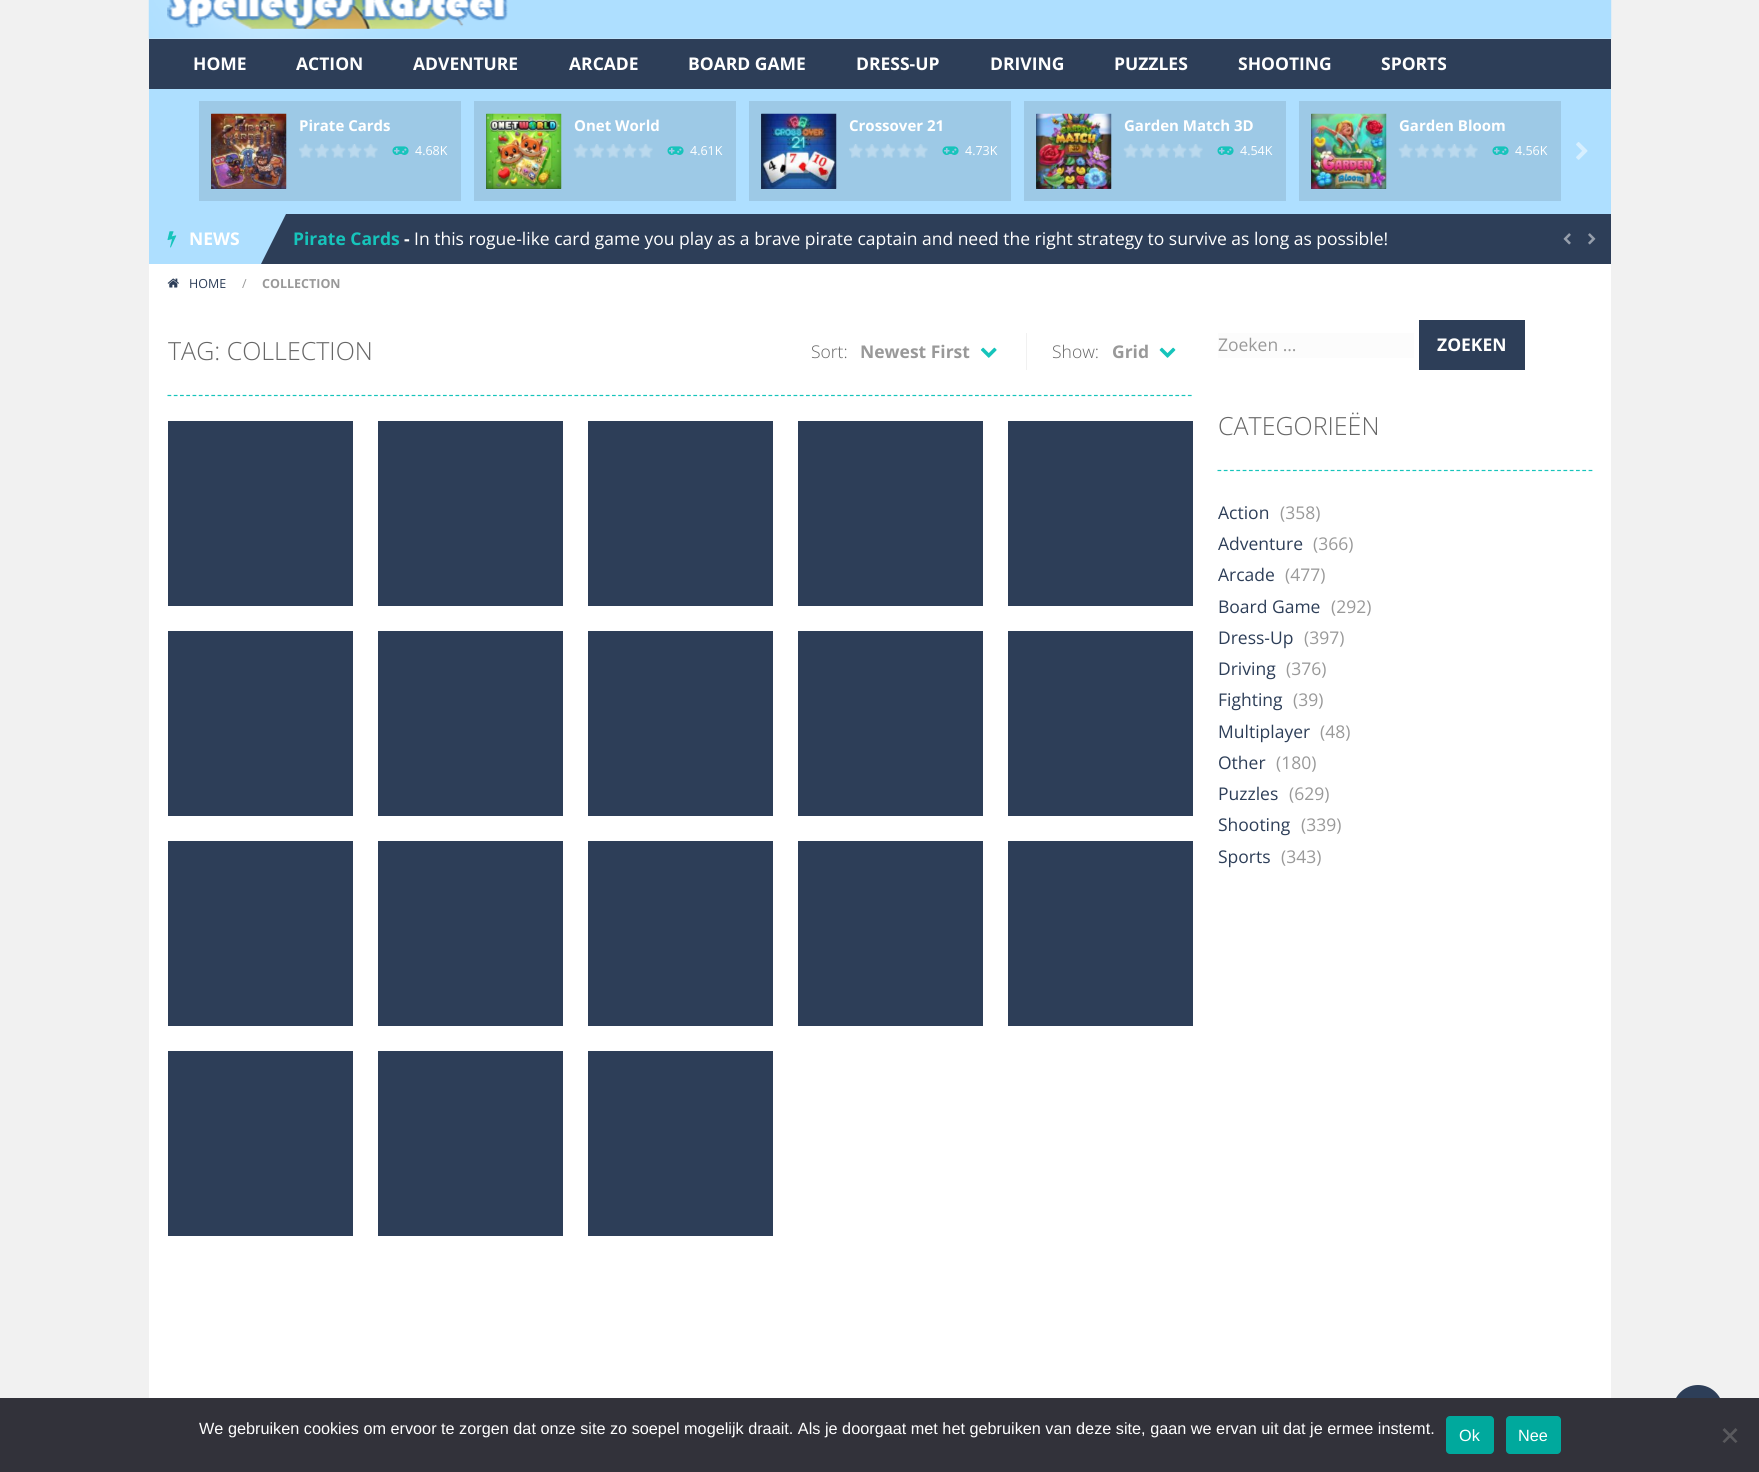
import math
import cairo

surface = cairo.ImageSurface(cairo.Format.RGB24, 1759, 1472)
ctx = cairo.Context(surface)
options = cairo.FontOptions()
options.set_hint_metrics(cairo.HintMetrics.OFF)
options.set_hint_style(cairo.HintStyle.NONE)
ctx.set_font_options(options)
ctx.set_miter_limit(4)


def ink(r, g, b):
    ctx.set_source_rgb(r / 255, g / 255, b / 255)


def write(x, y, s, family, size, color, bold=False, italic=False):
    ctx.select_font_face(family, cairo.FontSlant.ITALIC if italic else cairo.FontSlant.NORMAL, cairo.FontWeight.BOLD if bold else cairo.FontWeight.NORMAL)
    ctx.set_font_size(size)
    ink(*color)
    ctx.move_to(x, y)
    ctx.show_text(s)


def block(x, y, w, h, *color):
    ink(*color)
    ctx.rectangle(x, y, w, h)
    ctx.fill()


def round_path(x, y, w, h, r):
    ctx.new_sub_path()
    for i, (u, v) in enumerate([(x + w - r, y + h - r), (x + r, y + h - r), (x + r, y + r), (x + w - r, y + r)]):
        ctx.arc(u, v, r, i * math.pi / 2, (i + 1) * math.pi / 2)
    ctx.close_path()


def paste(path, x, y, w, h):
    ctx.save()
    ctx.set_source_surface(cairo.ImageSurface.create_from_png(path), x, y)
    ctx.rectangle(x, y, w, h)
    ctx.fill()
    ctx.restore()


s1 = dict(family="Open Sans", size=17.5, color=(255, 255, 255), bold=True)
s2 = dict(family="Open Sans", size=15, color=(255, 255, 255), bold=True)
s3 = dict(family="Open Sans", size=12.5, color=(255, 255, 255))
s4 = dict(family="Open Sans", size=17.5, color=(22, 196, 187), bold=True)
s5 = dict(family="Open Sans", size=17.5, color=(255, 255, 255))
s6 = dict(family="Open Sans", size=12.5, color=(45, 62, 88))
s7 = dict(family="Open Sans", size=12.5, color=(153, 153, 153))
s8 = dict(family="Open Sans", size=12.5, color=(153, 153, 153), bold=True)
s9 = dict(family="Open Sans Light", size=25, color=(102, 102, 102))
s10 = dict(family="Open Sans Light", size=17.5, color=(102, 102, 102))
s11 = dict(family="Open Sans", size=17.5, color=(153, 153, 153), bold=True)
s12 = dict(family="Open Sans", size=17.5, color=(153, 153, 153))
s13 = dict(family="Open Sans", size=17.5, color=(45, 62, 88))
s14 = dict(family="Liberation Sans", size=16.25, color=(255, 255, 255))

ink(241, 241, 241)
ctx.paint()
paste("pic1.png", 148, 0, 1464, 39)
paste("pic2.png", 167, 0, 341, 29)
block(149, 39, 1462, 50, 45, 62, 88)
write(193, 70, "HOME", **s1)
write(296, 70, "ACTION", **s1)
write(413, 70, "ADVENTURE", **s1)
write(569, 70, "ARCADE", **s1)
write(688, 70, "BOARD GAME", **s1)
write(856, 70, "DRESS-UP", **s1)
write(990, 70, "DRIVING", **s1)
write(1114, 70, "PUZZLES", **s1)
write(1238, 70, "SHOOTING", **s1)
write(1381, 70, "SPORTS", **s1)
block(149, 89, 1462, 125, 174, 223, 255)
block(199, 101, 262, 100, 157, 201, 230)
block(211, 114, 75, 75, 45, 62, 88)
paste("pic3.png", 211, 113, 76, 76)
write(299, 131, "Pirate Cards", **s2)
paste("pic4.png", 299, 144, 14, 14)
paste("pic5.png", 315, 144, 14, 14)
paste("pic6.png", 331, 144, 15, 14)
paste("pic7.png", 347, 144, 15, 14)
paste("pic8.png", 363, 144, 15, 14)
paste("pic9.png", 392, 146, 17, 9)
write(415, 155, "4.68K", **s3)
block(474, 101, 262, 100, 157, 201, 230)
block(486, 114, 75, 75, 45, 62, 88)
paste("pic10.png", 486, 113, 76, 76)
write(574, 131, "Onet World", **s2)
paste("pic8.png", 573, 144, 15, 14)
paste("pic5.png", 590, 144, 14, 14)
paste("pic6.png", 606, 144, 15, 14)
paste("pic7.png", 622, 144, 15, 14)
paste("pic11.png", 638, 144, 15, 14)
paste("pic9.png", 667, 146, 17, 9)
write(690, 155, "4.61K", **s3)
block(749, 101, 262, 100, 157, 201, 230)
block(761, 114, 75, 75, 45, 62, 88)
paste("pic12.png", 761, 113, 76, 76)
write(849, 131, "Crossover 21", **s2)
paste("pic13.png", 849, 144, 14, 14)
paste("pic14.png", 865, 144, 14, 14)
paste("pic15.png", 881, 144, 14, 14)
paste("pic16.png", 897, 143, 15, 15)
paste("pic8.png", 913, 144, 15, 14)
paste("pic9.png", 942, 146, 17, 9)
write(965, 155, "4.73K", **s3)
block(1024, 101, 262, 100, 157, 201, 230)
block(1036, 114, 75, 75, 45, 62, 88)
paste("pic17.png", 1036, 113, 76, 76)
write(1124, 131, "Garden Match 3D", **s2)
paste("pic8.png", 1123, 144, 15, 14)
paste("pic5.png", 1140, 144, 14, 14)
paste("pic6.png", 1156, 144, 15, 14)
paste("pic7.png", 1172, 144, 15, 14)
paste("pic11.png", 1188, 144, 15, 14)
paste("pic9.png", 1217, 146, 17, 9)
write(1240, 155, "4.54K", **s3)
block(1299, 101, 262, 100, 157, 201, 230)
block(1311, 114, 75, 75, 45, 62, 88)
paste("pic18.png", 1311, 113, 76, 76)
write(1399, 131, "Garden Bloom", **s2)
paste("pic8.png", 1398, 144, 15, 14)
paste("pic5.png", 1415, 144, 14, 14)
paste("pic6.png", 1431, 144, 15, 14)
paste("pic7.png", 1447, 144, 15, 14)
paste("pic8.png", 1463, 144, 15, 14)
paste("pic9.png", 1492, 146, 17, 9)
write(1515, 155, "4.56K", **s3)
paste("pic19.png", 1576, 142, 12, 18)
block(261, 214, 1350, 50, 45, 62, 88)
block(149, 214, 112, 50, 174, 223, 255)
paste("pic20.png", 167, 231, 10, 17)
write(189, 245, "NEWS", **s1)
ink(174, 223, 255)
ctx.new_path()
ctx.move_to(261, 214)
ctx.line_to(286, 214)
ctx.line_to(261, 264)
ctx.close_path()
ctx.fill()
write(293, 245, "Pirate Cards", **s4)
write(404, 245, "-", **s1)
write(414, 245, "In this rogue-like card game you play as a brave pirate captain and need the right strategy to survive as long as possible!", **s5)
paste("pic21.png", 1563, 233, 8, 12)
paste("pic22.png", 1588, 233, 8, 12)
block(149, 264, 1462, 1134, 255, 255, 255)
paste("pic23.png", 167, 278, 12, 10)
write(189, 288, "HOME", **s6)
write(242, 288, "/", **s7)
write(262, 288, "COLLECTION", **s8)
ctx.new_path()
ctx.move_to(167.5, 395.5)
ctx.line_to(1192.5, 395.5)
ink(22, 196, 187)
ctx.set_line_width(1.2)
ctx.set_dash([3.75, 2.51])
ctx.stroke()
write(168, 360, "TAG: COLLECTION", **s9)
block(1026, 333, 1, 37, 241, 241, 241)
write(811, 358, "Sort:", **s10)
write(860, 358, "Newest First", **s11)
paste("pic24.png", 980, 347, 17, 11)
write(1052, 358, "Show:", **s10)
write(1112, 358, "Grid", **s11)
paste("pic25.png", 1159, 347, 17, 11)
block(168, 421, 185, 185, 45, 62, 88)
block(378, 421, 185, 185, 45, 62, 88)
block(588, 421, 185, 185, 45, 62, 88)
block(798, 421, 185, 185, 45, 62, 88)
block(1008, 421, 185, 185, 45, 62, 88)
block(168, 631, 185, 185, 45, 62, 88)
block(378, 631, 185, 185, 45, 62, 88)
block(588, 631, 185, 185, 45, 62, 88)
block(798, 631, 185, 185, 45, 62, 88)
block(1008, 631, 185, 185, 45, 62, 88)
block(168, 841, 185, 185, 45, 62, 88)
block(378, 841, 185, 185, 45, 62, 88)
block(588, 841, 185, 185, 45, 62, 88)
block(798, 841, 185, 185, 45, 62, 88)
block(1008, 841, 185, 185, 45, 62, 88)
block(168, 1051, 185, 185, 45, 62, 88)
block(378, 1051, 185, 185, 45, 62, 88)
block(588, 1051, 185, 185, 45, 62, 88)
block(1218, 333, 196, 25, 252, 252, 252)
write(1218, 351, "Zoeken …", **s12)
block(1419, 320, 106, 50, 45, 62, 88)
write(1437, 351, "ZOEKEN", **s1)
ctx.new_path()
ctx.move_to(1217.5, 470.5)
ctx.line_to(1592.5, 470.5)
ink(22, 196, 187)
ctx.set_dash([3.75, 2.54])
ctx.stroke()
write(1218, 435, "CATEGORIEËN", **s9)
write(1218, 519, "Action", **s13)
write(1280, 519, "(358)", **s12)
write(1218, 550, "Adventure", **s13)
write(1313, 550, "(366)", **s12)
write(1218, 581, "Arcade", **s13)
write(1285, 581, "(477)", **s12)
write(1218, 613, "Board Game", **s13)
write(1331, 613, "(292)", **s12)
write(1218, 644, "Dress-Up", **s13)
write(1304, 644, "(397)", **s12)
write(1218, 675, "Driving", **s13)
write(1286, 675, "(376)", **s12)
write(1218, 706, "Fighting", **s13)
write(1293, 706, "(39)", **s12)
write(1218, 738, "Multiplayer", **s13)
write(1320, 738, "(48)", **s12)
write(1218, 769, "Other", **s13)
write(1276, 769, "(180)", **s12)
write(1218, 800, "Puzzles", **s13)
write(1289, 800, "(629)", **s12)
write(1218, 831, "Shooting", **s13)
write(1301, 831, "(339)", **s12)
write(1218, 863, "Sports", **s13)
write(1281, 863, "(343)", **s12)
ink(45, 62, 88)
ctx.new_path()
ctx.arc(1698, 1410, 25, 0, 2 * math.pi)
ctx.fill()
block(0, 1398, 1759, 74, 50, 50, 58)
write(199, 1434, "We gebruiken cookies om ervoor te zorgen dat onze site zo soepel mogelijk draait. Als je doorgaat met het gebruiken van deze site, gaan we ervan uit dat je ermee instemt.", **s14)
ink(0, 169, 157)
round_path(1446, 1416, 48, 38, 4)
ctx.fill()
write(1459, 1441, "Ok", **s14)
ink(0, 169, 157)
round_path(1506, 1416, 55, 38, 4)
ctx.fill()
write(1518, 1441, "Nee", **s14)
ink(89, 89, 93)
ctx.new_path()
ctx.move_to(1735.5, 1428)
ctx.line_to(1737.5, 1430)
ctx.line_to(1724.5, 1443)
ctx.line_to(1722.5, 1441.5)
ctx.close_path()
ctx.fill()
ctx.new_path()
ctx.move_to(1722.5, 1430)
ctx.line_to(1724.5, 1428)
ctx.line_to(1737.5, 1441.5)
ctx.line_to(1735.5, 1443)
ctx.close_path()
ctx.fill()
surface.write_to_png("screenshot.png")
